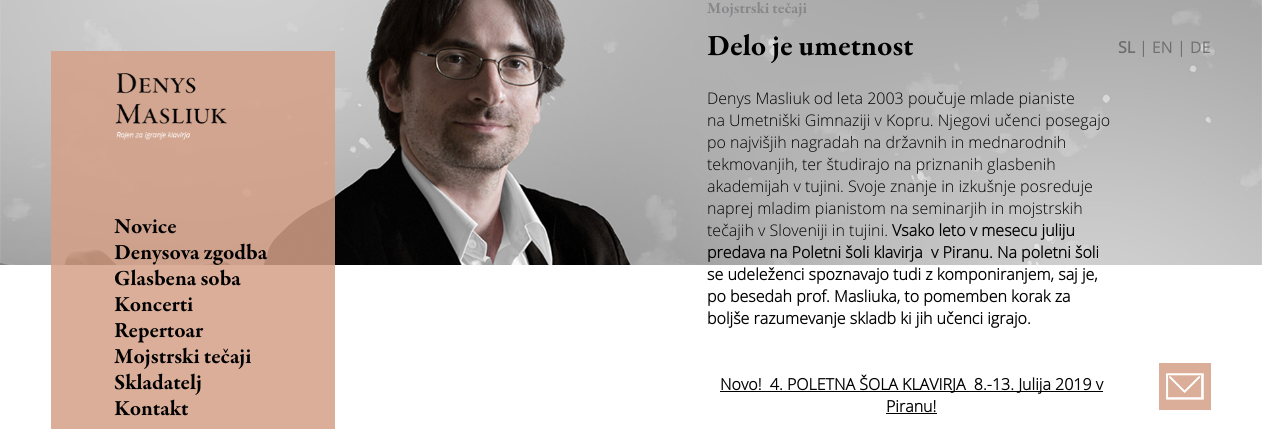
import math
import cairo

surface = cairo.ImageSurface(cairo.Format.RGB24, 1262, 442)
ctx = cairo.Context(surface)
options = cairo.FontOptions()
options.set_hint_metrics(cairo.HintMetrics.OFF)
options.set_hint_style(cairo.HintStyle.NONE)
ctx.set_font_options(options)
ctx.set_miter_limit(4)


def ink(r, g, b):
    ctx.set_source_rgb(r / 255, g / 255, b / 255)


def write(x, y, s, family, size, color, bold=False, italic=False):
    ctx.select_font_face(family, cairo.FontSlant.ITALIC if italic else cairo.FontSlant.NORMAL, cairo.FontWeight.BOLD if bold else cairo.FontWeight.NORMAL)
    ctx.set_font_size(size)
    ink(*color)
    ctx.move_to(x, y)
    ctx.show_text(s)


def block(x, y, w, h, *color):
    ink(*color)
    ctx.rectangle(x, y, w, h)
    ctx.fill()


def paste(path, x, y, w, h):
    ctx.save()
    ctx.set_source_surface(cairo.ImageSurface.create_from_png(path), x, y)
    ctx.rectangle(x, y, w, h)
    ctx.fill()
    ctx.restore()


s1 = dict(family="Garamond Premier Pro", size=16, color=(135, 135, 137), bold=True)
s2 = dict(family="Garamond Premier Pro", size=30, color=(0, 0, 0), bold=True)
s3 = dict(family="Open Sans Light", size=16, color=(0, 0, 0))
s4 = dict(family="Open Sans", size=16, color=(0, 0, 0), bold=True)
s5 = dict(family="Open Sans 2", size=16, color=(110, 110, 112), bold=True)
s6 = dict(family="Open Sans", size=16, color=(110, 110, 112))
s7 = dict(family="Garamond Premier Pro", size=22, color=(0, 0, 0), bold=True)

ink(255, 255, 255)
ctx.paint()
paste("pic1.png", 0, 0, 1262, 265)
write(707, 13, "Mojstrski tečaji", **s1)
write(707, 55, "Delo je umetnost", **s2)
write(707, 104, "Denys Masliuk od leta 2003 poučuje mlade pianiste", **s3)
write(707, 126, "na Umetniški Gimnaziji v Kopru. Njegovi učenci posegajo", **s3)
write(707, 148, "po najvišjih nagradah na državnih in mednarodnih", **s3)
write(707, 170, "tekmovanjih, ter študirajo na priznanih glasbenih", **s3)
write(707, 192, "akademijah v tujini. Svoje znanje in izkušnje posreduje", **s3)
write(707, 214, "naprej mladim pianistom na seminarjih in mojstrskih", **s3)
write(707, 236, "tečajih v Sloveniji in tujini.", **s3)
write(892, 236, "Vsako leto v mesecu juliju", **s4)
write(707, 258, "predava na Poletni šoli klavirja  v Piranu. Na poletni šoli", **s4)
write(707, 280, "se udeleženci spoznavajo tudi z komponiranjem, saj je,", **s4)
write(707, 302, "po besedah prof. Masliuka, to pomemben korak za", **s4)
write(707, 324, "boljše razumevanje skladb ki jih učenci igrajo.", **s4)
block(720, 391, 383, 1, 0, 0, 0)
write(720, 390, "Novo!  4. POLETNA ŠOLA KLAVIRJA  8.-13. Julija 2019 v", **s4)
write(886, 412, "Piranu!", **s4)
block(886, 413, 51, 1, 0, 0, 0)
write(1118, 53, "SL", **s5)
write(1139, 53, "| EN | DE", **s6)
ctx.set_source_rgba(0.835, 0.627, 0.529, 0.85)
ctx.rectangle(51, 51, 284, 378)
ctx.fill()
paste("pic2.png", 115, 73, 112, 67)
write(114, 233, "Novice", **s7)
write(114, 259, "Denysova zgodba", **s7)
write(114, 285, "Glasbena soba", **s7)
write(114, 311, "Koncerti", **s7)
write(114, 337, "Repertoar", **s7)
write(114, 363, "Mojstrski tečaji", **s7)
write(114, 389, "Skladatelj", **s7)
write(114, 415, "Kontakt", **s7)
block(1159, 363, 52, 47, 219, 174, 153)
paste("pic3.png", 1166, 373, 38, 27)
surface.write_to_png("screenshot.png")
